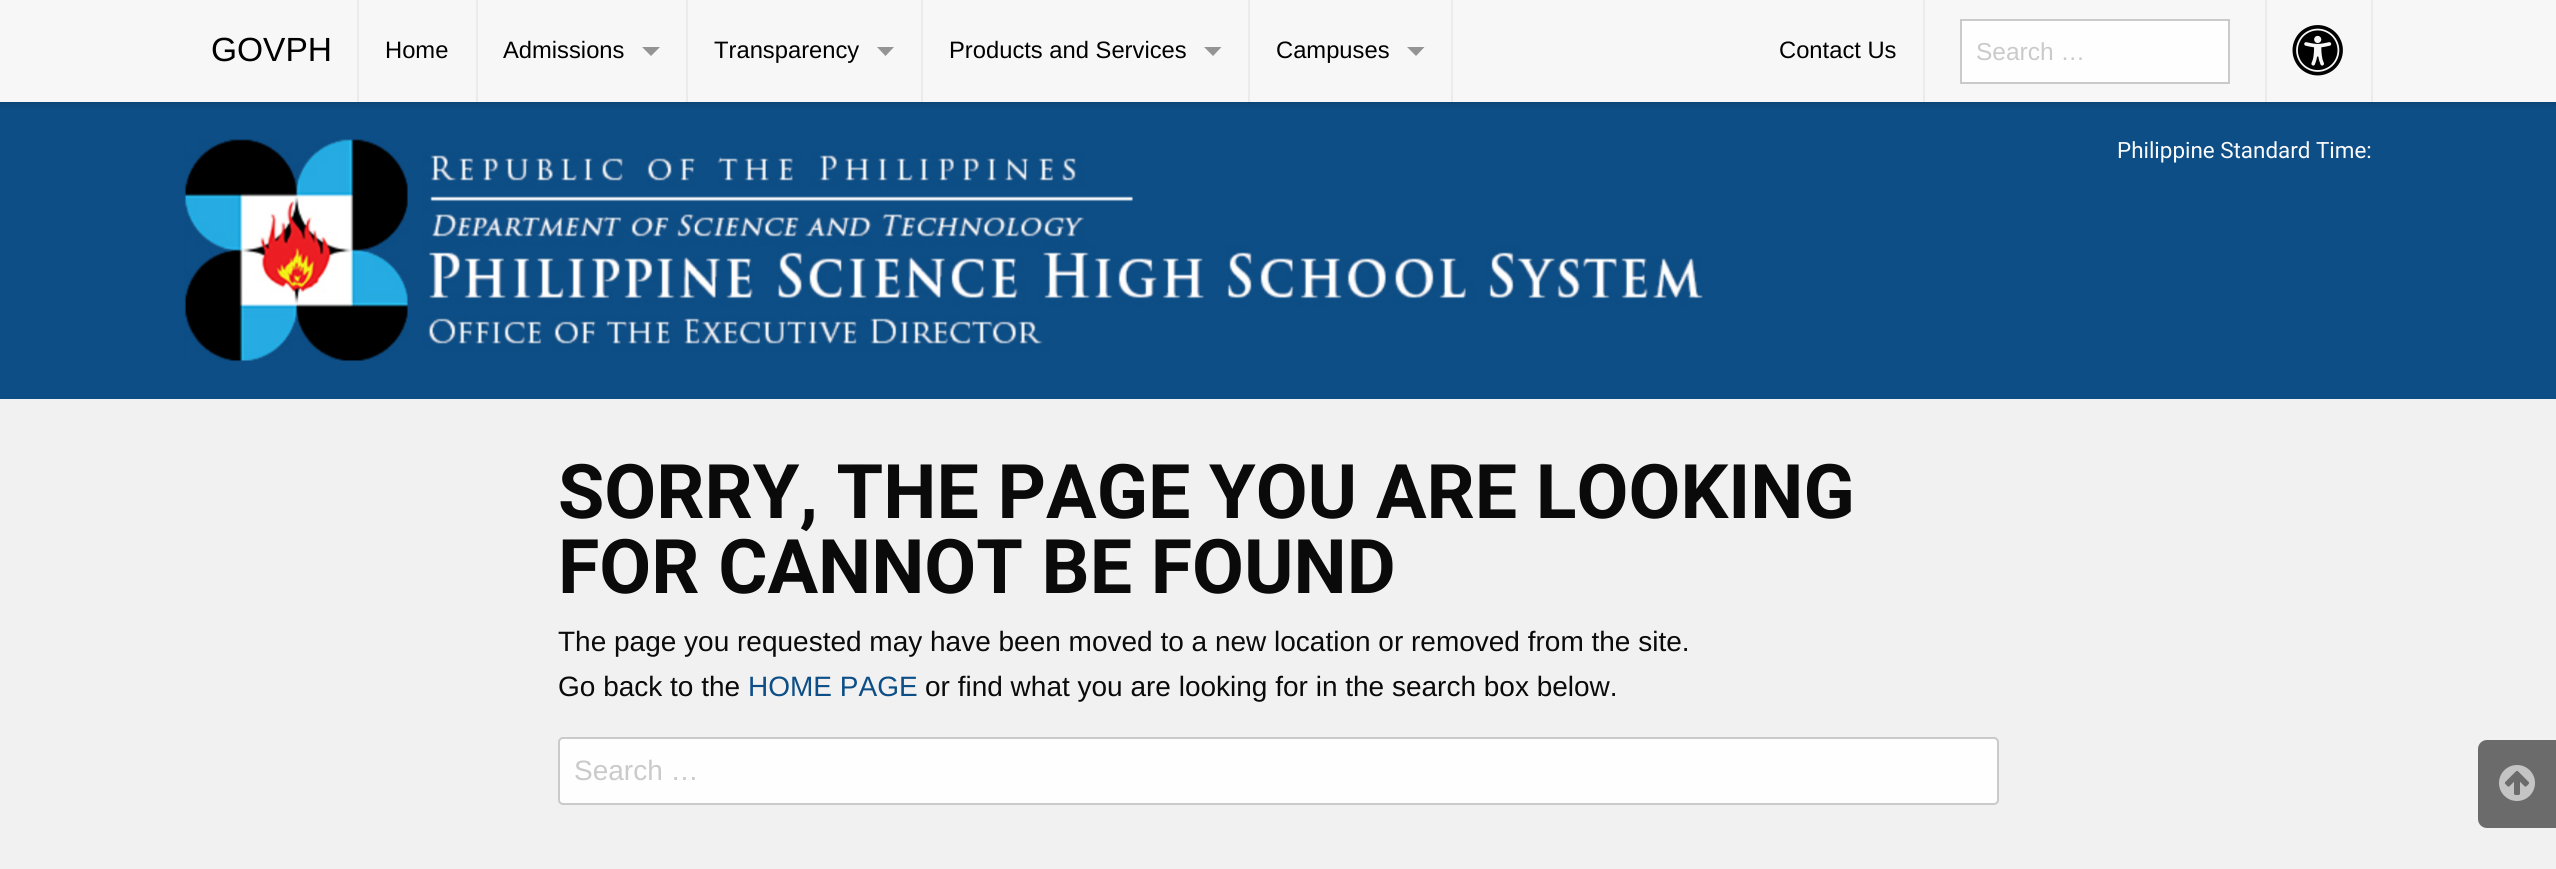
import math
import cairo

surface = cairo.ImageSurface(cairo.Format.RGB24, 2556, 869)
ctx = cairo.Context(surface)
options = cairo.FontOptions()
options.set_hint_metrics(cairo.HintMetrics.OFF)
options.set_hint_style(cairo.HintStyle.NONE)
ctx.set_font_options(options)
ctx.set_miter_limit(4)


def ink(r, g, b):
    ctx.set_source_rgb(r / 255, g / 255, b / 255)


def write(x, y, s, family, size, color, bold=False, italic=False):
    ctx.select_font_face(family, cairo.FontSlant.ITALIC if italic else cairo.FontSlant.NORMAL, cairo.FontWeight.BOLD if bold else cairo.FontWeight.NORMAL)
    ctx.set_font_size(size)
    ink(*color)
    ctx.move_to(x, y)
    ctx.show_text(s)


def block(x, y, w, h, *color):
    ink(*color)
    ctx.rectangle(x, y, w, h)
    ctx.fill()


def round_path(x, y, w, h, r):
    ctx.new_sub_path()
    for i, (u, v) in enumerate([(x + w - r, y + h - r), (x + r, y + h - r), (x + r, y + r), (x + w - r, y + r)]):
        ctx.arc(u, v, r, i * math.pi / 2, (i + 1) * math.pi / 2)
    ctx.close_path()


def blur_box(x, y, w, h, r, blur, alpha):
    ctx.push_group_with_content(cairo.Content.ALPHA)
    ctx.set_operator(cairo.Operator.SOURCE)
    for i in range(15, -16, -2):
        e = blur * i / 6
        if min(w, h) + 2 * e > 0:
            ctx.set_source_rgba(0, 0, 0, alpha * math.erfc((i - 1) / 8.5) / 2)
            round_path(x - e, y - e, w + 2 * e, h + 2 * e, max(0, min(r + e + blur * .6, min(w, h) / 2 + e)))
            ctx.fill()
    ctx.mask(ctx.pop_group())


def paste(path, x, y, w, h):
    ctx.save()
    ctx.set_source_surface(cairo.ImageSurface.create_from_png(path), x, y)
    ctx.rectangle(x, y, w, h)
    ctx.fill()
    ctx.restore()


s1 = dict(family="Liberation Sans", size=33.5, color=(0, 0, 0))
s2 = dict(family="Liberation Sans", size=23.75, color=(0, 0, 0))
s3 = dict(family="Liberation Sans", size=24.5, color=(202, 202, 202))
s4 = dict(family="Roboto", size=22.4, color=(250, 250, 250))
s5 = dict(family="Roboto", size=75.3, color=(10, 10, 10), bold=True)
s6 = dict(family="Liberation Sans", size=28, color=(10, 10, 10))
s7 = dict(family="Liberation Sans", size=28, color=(13, 78, 134))
s8 = dict(family="Liberation Sans", size=28, color=(202, 202, 202))

ink(241, 241, 241)
ctx.paint()
block(0, 102, 2556, 297, 13, 78, 134)
ink(0, 0, 0)
blur_box(0, 2, 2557, 101, 0, 3.5, 0.2)
block(0, 0, 2556, 102, 247, 247, 247)
block(357, 0, 2, 102, 235, 235, 235)
write(211, 61, "GOVPH", **s1)
block(476, 0, 2, 102, 235, 235, 235)
write(385, 58, "Home", **s2)
block(686, 0, 2, 102, 235, 235, 235)
write(503, 58, "Admissions", **s2)
ink(148, 148, 148)
ctx.new_path()
ctx.move_to(642, 47)
ctx.line_to(660, 47)
ctx.line_to(651, 56)
ctx.close_path()
ctx.fill()
block(921, 0, 2, 102, 235, 235, 235)
write(714, 58, "Transparency", **s2)
ink(148, 148, 148)
ctx.new_path()
ctx.move_to(877, 47)
ctx.line_to(894, 47)
ctx.line_to(885.5, 56)
ctx.close_path()
ctx.fill()
block(1248, 0, 2, 102, 235, 235, 235)
write(949, 58, "Products and Services", **s2)
ink(148, 148, 148)
ctx.new_path()
ctx.move_to(1204, 47)
ctx.line_to(1221.5, 47)
ctx.line_to(1213, 56)
ctx.close_path()
ctx.fill()
block(1451, 0, 2, 102, 235, 235, 235)
write(1276, 58, "Campuses", **s2)
ink(148, 148, 148)
ctx.new_path()
ctx.move_to(1407, 47)
ctx.line_to(1424.5, 47)
ctx.line_to(1416, 56)
ctx.close_path()
ctx.fill()
block(1923, 0, 2, 102, 235, 235, 235)
write(1779, 58, "Contact Us", **s2)
block(2265, 0, 2, 102, 235, 235, 235)
ink(254, 254, 254)
ctx.rectangle(1961, 20, 268, 63)
ctx.fill_preserve()
ink(202, 202, 202)
ctx.stroke()
write(1976, 60, "Search …", **s3)
block(2371, 0, 2, 102, 235, 235, 235)
paste("pic1.png", 2292, 25, 51, 51)
paste("pic2.png", 184, 139, 1519, 222)
write(2117, 158, "Philippine Standard Time:", **s4)
write(558, 518, "SORRY, THE PAGE YOU ARE LOOKING", **s5)
write(558, 593, "FOR CANNOT BE FOUND", **s5)
write(558, 651, "The page you requested may have been moved to a new location or removed from the site.", **s6)
write(558, 696, "Go back to the", **s6)
write(748, 696, "HOME PAGE", **s7)
write(925, 696, "or find what you are looking for in the search box below.", **s6)
ink(254, 254, 254)
round_path(559, 738, 1439, 66, 4)
ctx.fill_preserve()
ink(202, 202, 202)
ctx.stroke()
write(574, 780, "Search …", **s8)
ink(107, 107, 107)
ctx.new_path()
ctx.move_to(2487, 740)
ctx.line_to(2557, 740)
ctx.line_to(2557, 828)
ctx.line_to(2487, 828)
ctx.curve_to(2482, 828, 2478, 824, 2478, 819)
ctx.line_to(2478, 749)
ctx.curve_to(2478, 744, 2482, 740, 2487, 740)
ctx.close_path()
ctx.fill()
paste("pic3.png", 2499, 765, 36, 36)
surface.write_to_png("screenshot.png")
